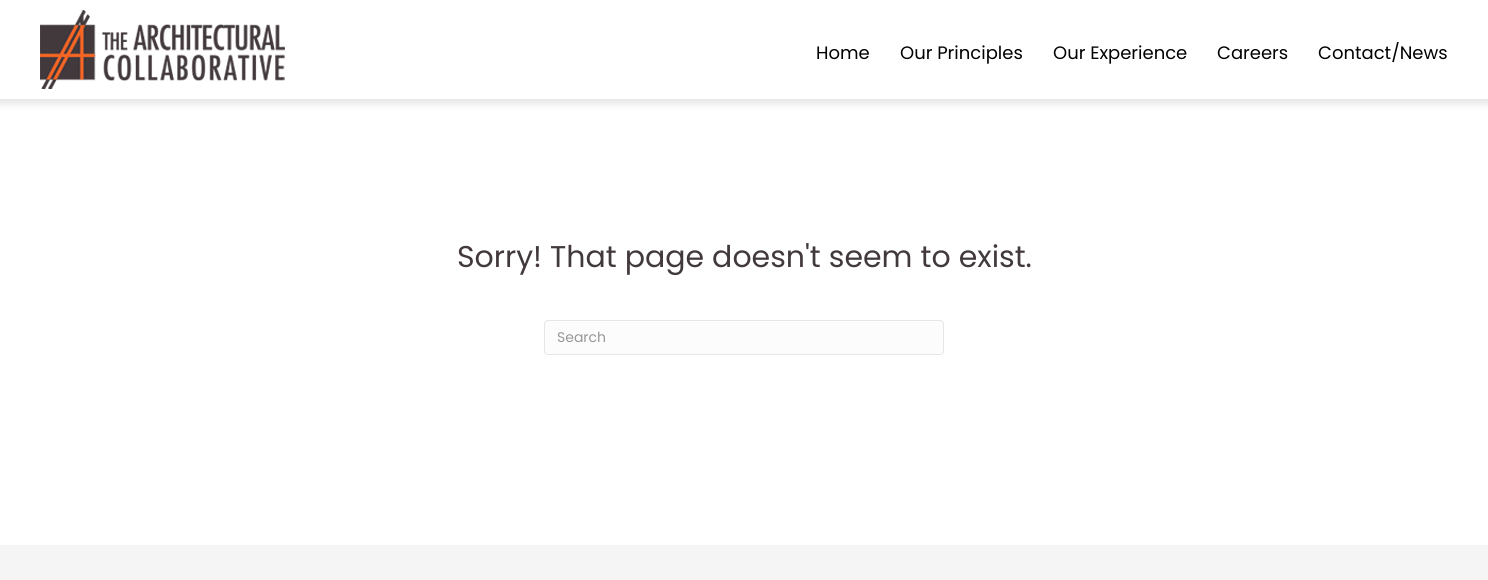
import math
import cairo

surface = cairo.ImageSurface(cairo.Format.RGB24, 1488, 580)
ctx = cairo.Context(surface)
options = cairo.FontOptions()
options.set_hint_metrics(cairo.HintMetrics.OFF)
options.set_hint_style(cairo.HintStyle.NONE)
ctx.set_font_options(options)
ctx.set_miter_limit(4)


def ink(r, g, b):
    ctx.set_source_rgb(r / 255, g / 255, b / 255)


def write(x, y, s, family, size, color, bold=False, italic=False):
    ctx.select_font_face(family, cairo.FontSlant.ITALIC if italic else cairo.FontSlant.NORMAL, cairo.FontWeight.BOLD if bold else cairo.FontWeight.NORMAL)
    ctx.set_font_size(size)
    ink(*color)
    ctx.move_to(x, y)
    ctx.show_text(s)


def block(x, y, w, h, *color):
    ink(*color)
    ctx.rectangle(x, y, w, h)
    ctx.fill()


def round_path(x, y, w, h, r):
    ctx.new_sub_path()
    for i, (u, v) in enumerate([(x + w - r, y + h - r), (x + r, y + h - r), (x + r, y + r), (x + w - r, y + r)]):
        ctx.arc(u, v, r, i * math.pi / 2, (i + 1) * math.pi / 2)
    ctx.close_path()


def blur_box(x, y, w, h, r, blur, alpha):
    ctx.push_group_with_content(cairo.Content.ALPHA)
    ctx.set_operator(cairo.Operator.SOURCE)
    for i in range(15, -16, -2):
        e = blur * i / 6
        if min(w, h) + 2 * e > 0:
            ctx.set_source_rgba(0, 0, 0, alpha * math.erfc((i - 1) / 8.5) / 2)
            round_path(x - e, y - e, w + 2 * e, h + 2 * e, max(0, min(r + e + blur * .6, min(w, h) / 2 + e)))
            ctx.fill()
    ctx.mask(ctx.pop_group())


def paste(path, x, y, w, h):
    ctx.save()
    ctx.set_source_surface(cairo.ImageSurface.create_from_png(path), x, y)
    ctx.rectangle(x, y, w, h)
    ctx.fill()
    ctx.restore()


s1 = dict(family="Poppins", size=18, color=(0, 0, 0))
s2 = dict(family="Poppins", size=30, color=(66, 57, 61))
s3 = dict(family="Poppins", size=14, color=(151, 151, 151))

ink(255, 255, 255)
ctx.paint()
ink(0, 0, 0)
blur_box(-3, -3, 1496, 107, 0, 3.5, 0.1)
block(0, 0, 1488, 99, 255, 255, 255)
paste("pic1.png", 40, 10, 245, 79)
write(816, 59, "Home", **s1)
write(900, 59, "Our Principles", **s1)
write(1053, 59, "Our Experience", **s1)
write(1217, 59, "Careers", **s1)
write(1318, 59, "Contact/News", **s1)
write(457, 267, "Sorry! That page doesn't seem to exist.", **s2)
ink(252, 252, 252)
round_path(544.5, 320.5, 399, 34, 3.5)
ctx.fill_preserve()
ink(230, 230, 230)
ctx.set_line_width(1)
ctx.stroke()
write(557, 342, "Search", **s3)
block(0, 545, 1488, 35, 245, 245, 245)
surface.write_to_png("screenshot.png")
